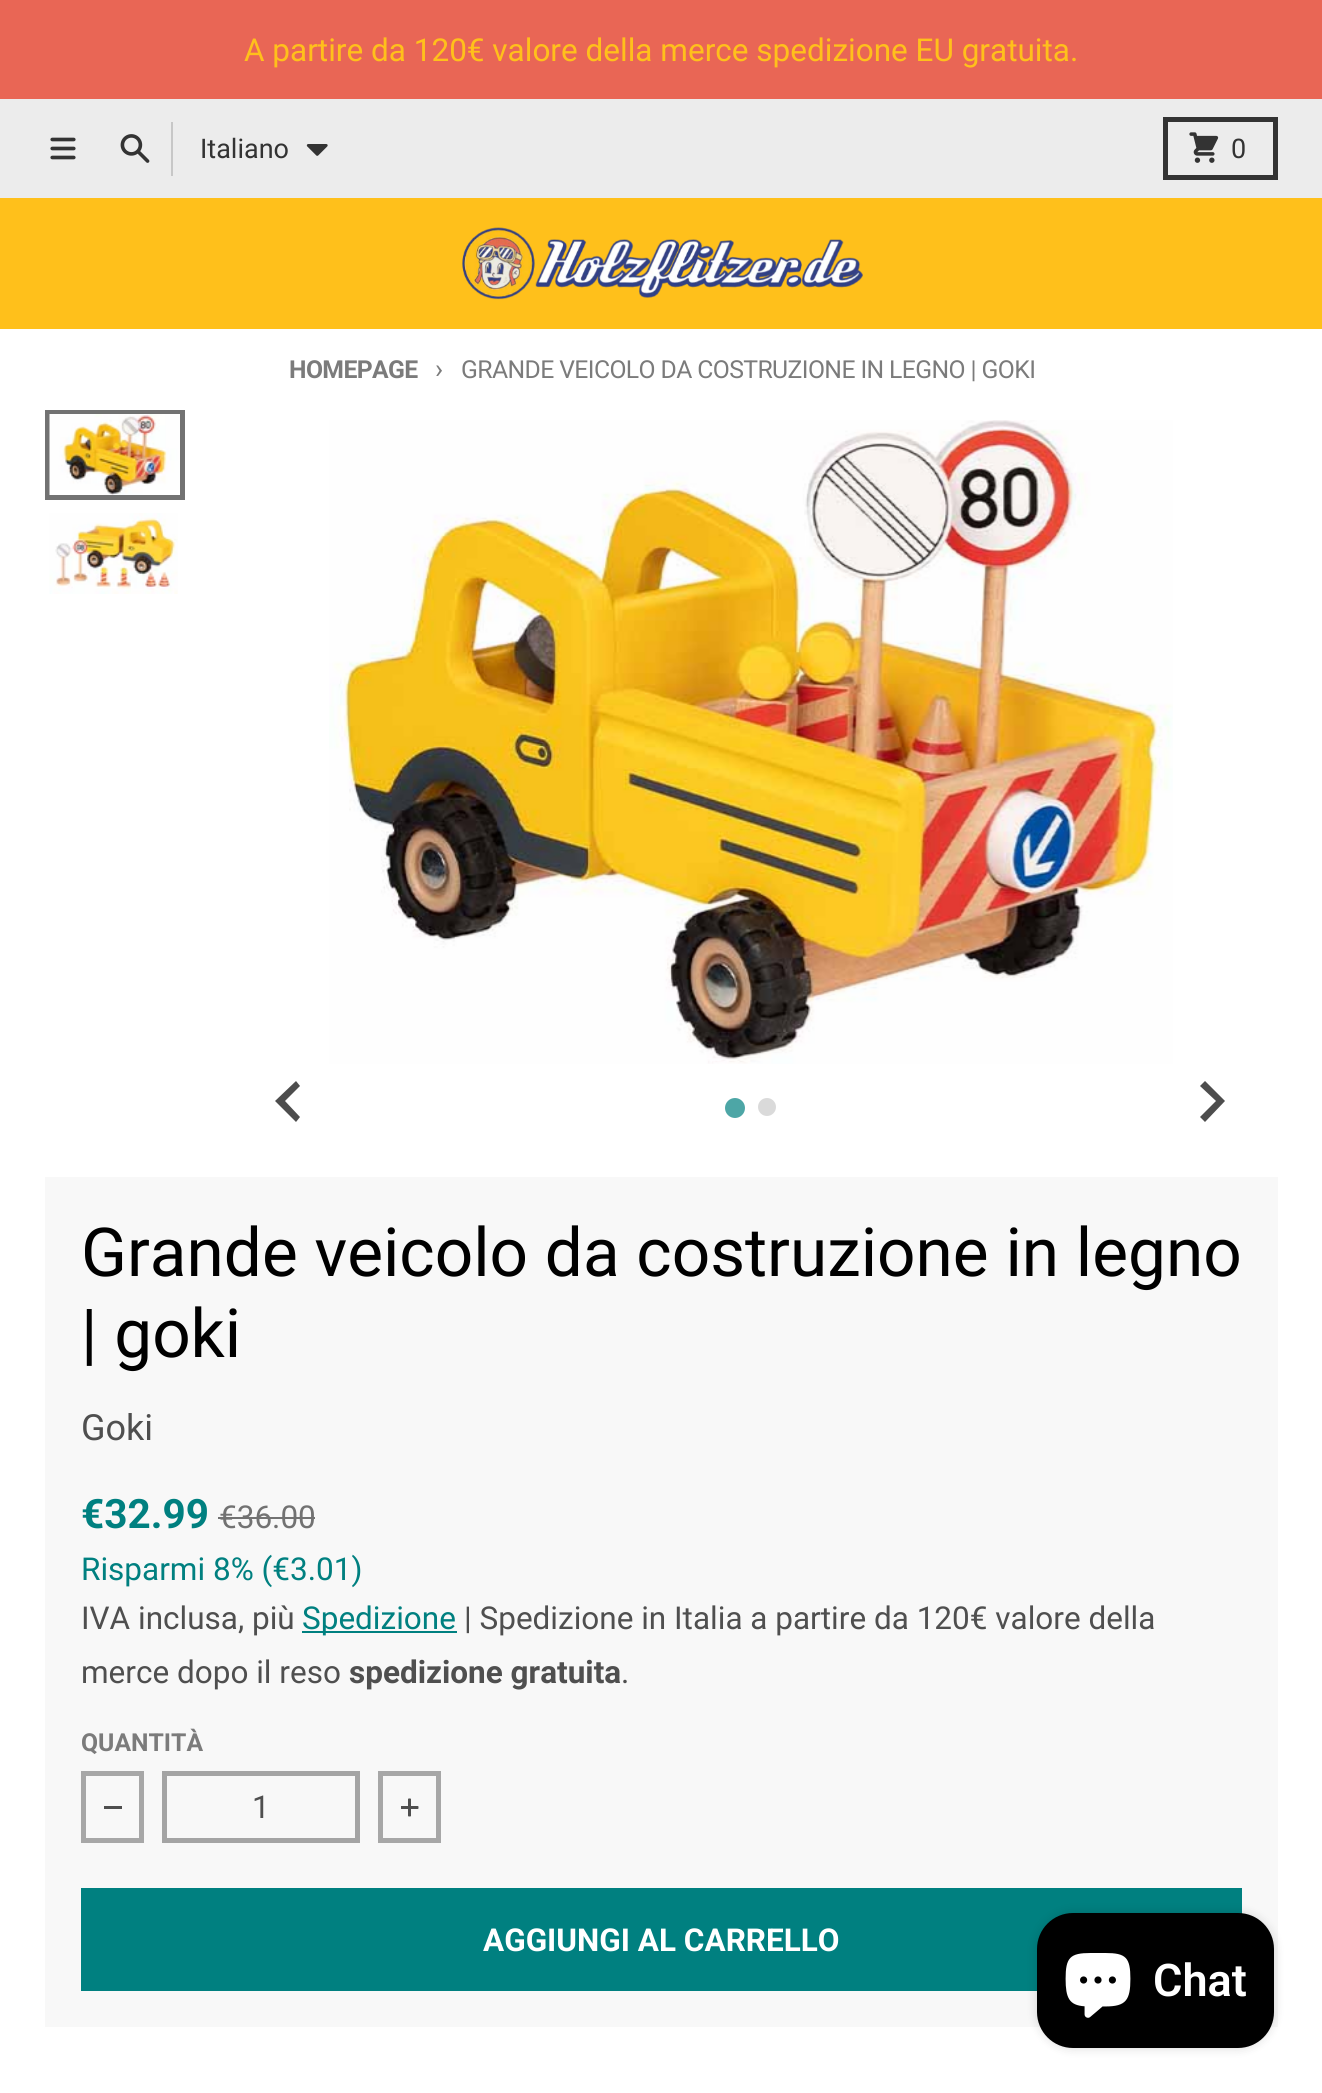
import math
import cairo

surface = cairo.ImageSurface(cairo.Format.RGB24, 1322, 2093)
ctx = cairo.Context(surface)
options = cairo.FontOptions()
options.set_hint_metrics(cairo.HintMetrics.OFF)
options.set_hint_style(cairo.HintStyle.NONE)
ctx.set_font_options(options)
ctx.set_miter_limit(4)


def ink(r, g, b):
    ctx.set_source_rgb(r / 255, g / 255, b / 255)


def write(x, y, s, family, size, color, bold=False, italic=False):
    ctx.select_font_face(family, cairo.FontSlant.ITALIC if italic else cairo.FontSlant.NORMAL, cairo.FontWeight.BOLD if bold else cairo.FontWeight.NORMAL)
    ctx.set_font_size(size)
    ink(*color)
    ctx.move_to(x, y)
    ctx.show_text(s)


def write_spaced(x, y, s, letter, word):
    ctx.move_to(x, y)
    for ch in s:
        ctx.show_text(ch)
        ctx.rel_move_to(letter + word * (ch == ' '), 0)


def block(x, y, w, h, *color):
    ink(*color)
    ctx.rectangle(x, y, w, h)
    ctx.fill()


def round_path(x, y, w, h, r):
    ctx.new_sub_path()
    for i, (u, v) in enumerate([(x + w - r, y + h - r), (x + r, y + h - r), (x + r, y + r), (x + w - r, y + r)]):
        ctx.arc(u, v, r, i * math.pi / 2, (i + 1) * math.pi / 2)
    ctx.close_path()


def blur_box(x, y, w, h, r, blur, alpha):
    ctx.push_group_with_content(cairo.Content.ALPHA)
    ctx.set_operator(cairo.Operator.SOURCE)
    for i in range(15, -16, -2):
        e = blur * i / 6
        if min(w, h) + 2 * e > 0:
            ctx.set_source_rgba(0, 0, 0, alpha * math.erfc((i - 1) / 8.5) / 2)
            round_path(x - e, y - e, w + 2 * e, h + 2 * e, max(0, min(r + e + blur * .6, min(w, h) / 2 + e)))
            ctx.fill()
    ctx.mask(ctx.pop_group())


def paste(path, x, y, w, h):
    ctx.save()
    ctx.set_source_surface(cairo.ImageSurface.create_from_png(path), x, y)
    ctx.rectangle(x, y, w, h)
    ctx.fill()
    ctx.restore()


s1 = dict(family="Roboto", size=31.5, color=(255, 192, 27))
s2 = dict(family="Roboto", size=27, color=(51, 51, 51))
s3 = dict(family="Roboto", size=67.5, color=(0, 0, 0))
s4 = dict(family="Roboto", size=36, color=(79, 79, 79))
s5 = dict(family="Roboto", size=40.5, color=(0, 128, 128), bold=True)
s6 = dict(family="Roboto", size=31.5, color=(114, 114, 114))
s7 = dict(family="Roboto", size=31.5, color=(0, 128, 128))
s8 = dict(family="Roboto", size=31.5, color=(79, 79, 79))
s9 = dict(family="Roboto", size=31.5, color=(79, 79, 79), bold=True)
s10 = dict(family="Roboto", size=24.75, color=(123, 123, 123), bold=True)
s11 = dict(family="Roboto", size=31.5, color=(255, 255, 255), bold=True)
s12 = dict(family="Roboto SemiBold", size=45, color=(255, 255, 255))

ink(236, 236, 236)
ctx.paint()
block(0, 0, 1322, 99, 233, 102, 85)
write(244, 61, "A partire da 120€ valore della merce spedizione EU gratuita.", **s1)
paste("pic1.png", 50, 137, 26, 23)
paste("pic2.png", 120, 134, 30, 29)
block(171, 122, 2, 54, 199, 199, 199)
write(200, 158, "Italiano", **s2)
paste("pic3.png", 306, 144, 22, 12)
ctx.rectangle(1165.5, 119.5, 110, 58)
ctx.set_line_width(5)
ctx.stroke()
paste("pic4.png", 1189, 132, 30, 31)
write(1231, 158, "0", **s2)
block(0, 198, 1322, 131, 255, 192, 27)
paste("pic5.png", 462, 227, 401, 73)
block(0, 329, 1322, 1764, 255, 255, 255)
ctx.select_font_face("Roboto", cairo.FontSlant.NORMAL, cairo.FontWeight.BOLD)
ctx.set_font_size(24.75)
ink(123, 123, 123)
write_spaced(289, 378, "HOMEPAGE", -0.6, 0)
ctx.select_font_face("Roboto")
ctx.set_font_size(27)
write_spaced(435, 378, "›", -0.6, 0)
ctx.set_font_size(24.75)
write_spaced(461, 378, "GRANDE VEICOLO DA COSTRUZIONE IN LEGNO | GOKI", -0.6, 0)
ctx.rectangle(47.5, 412.5, 135, 85)
ink(114, 114, 114)
ctx.stroke()
paste("pic6.png", 49, 414, 131, 81)
paste("pic7.png", 49, 513, 129, 81)
paste("pic8.png", 329, 420, 844, 644)
ink(77, 77, 77)
ctx.new_path()
ctx.move_to(296, 1081)
ctx.line_to(300, 1086)
ctx.line_to(285, 1101)
ctx.line_to(300, 1117)
ctx.line_to(296, 1122)
ctx.line_to(275, 1101)
ctx.close_path()
ctx.fill()
ctx.new_path()
ctx.move_to(1205, 1081)
ctx.line_to(1200, 1086)
ctx.line_to(1216, 1101)
ctx.line_to(1200, 1117)
ctx.line_to(1205, 1122)
ctx.line_to(1225, 1101)
ctx.close_path()
ctx.fill()
ink(77, 166, 166)
ctx.arc(735, 1108, 10, 0, 2 * math.pi)
ctx.fill()
ink(218, 218, 218)
ctx.arc(767, 1107, 9, 0, 2 * math.pi)
ctx.fill()
block(45, 1177, 1233, 850, 248, 248, 248)
write(81, 1276, "Grande veicolo da costruzione in legno", **s3)
write(81, 1357, "| goki", **s3)
write(81, 1440, "Goki", **s4)
write(81, 1528, "€32.99", **s5)
write(219, 1528, "€36.00", **s6)
block(218, 1517, 97, 2, 114, 114, 114)
write(81, 1580, "Risparmi 8% (€3.01)", **s7)
write(81, 1629, "IVA inclusa, più", **s8)
block(302, 1631, 155, 2, 0, 128, 128)
write(302, 1629, "Spedizione", **s7)
write(464, 1629, "| Spedizione in Italia a partire da 120€ valore della", **s8)
write(81, 1683, "merce dopo il reso", **s8)
write(349, 1683, "spedizione gratuita", **s9)
write(621, 1683, ".", **s8)
write(81, 1751, "QUANTITÀ", **s10)
ctx.rectangle(83.5, 1773.5, 58, 67)
ink(167, 167, 167)
ctx.stroke()
block(104, 1806, 18, 3, 79, 79, 79)
ctx.rectangle(164.5, 1773.5, 193, 67)
ink(164, 164, 164)
ctx.stroke()
write(252, 1818, "1", **s8)
ctx.rectangle(380.5, 1773.5, 58, 67)
ink(167, 167, 167)
ctx.stroke()
paste("pic9.png", 401, 1798, 18, 19)
block(81, 1888, 1161, 103, 0, 128, 128)
write(483, 1951, "AGGIUNGI AL CARRELLO", **s11)
ink(0, 0, 0)
blur_box(1037, 1913, 237, 135, 36, 5.5, 0.15)
ink(0, 0, 0)
round_path(1037, 1913, 237, 135, 36)
ctx.fill()
paste("pic10.png", 1065, 1953, 66, 65)
write(1153, 1996, "Chat", **s12)
surface.write_to_png("screenshot.png")
